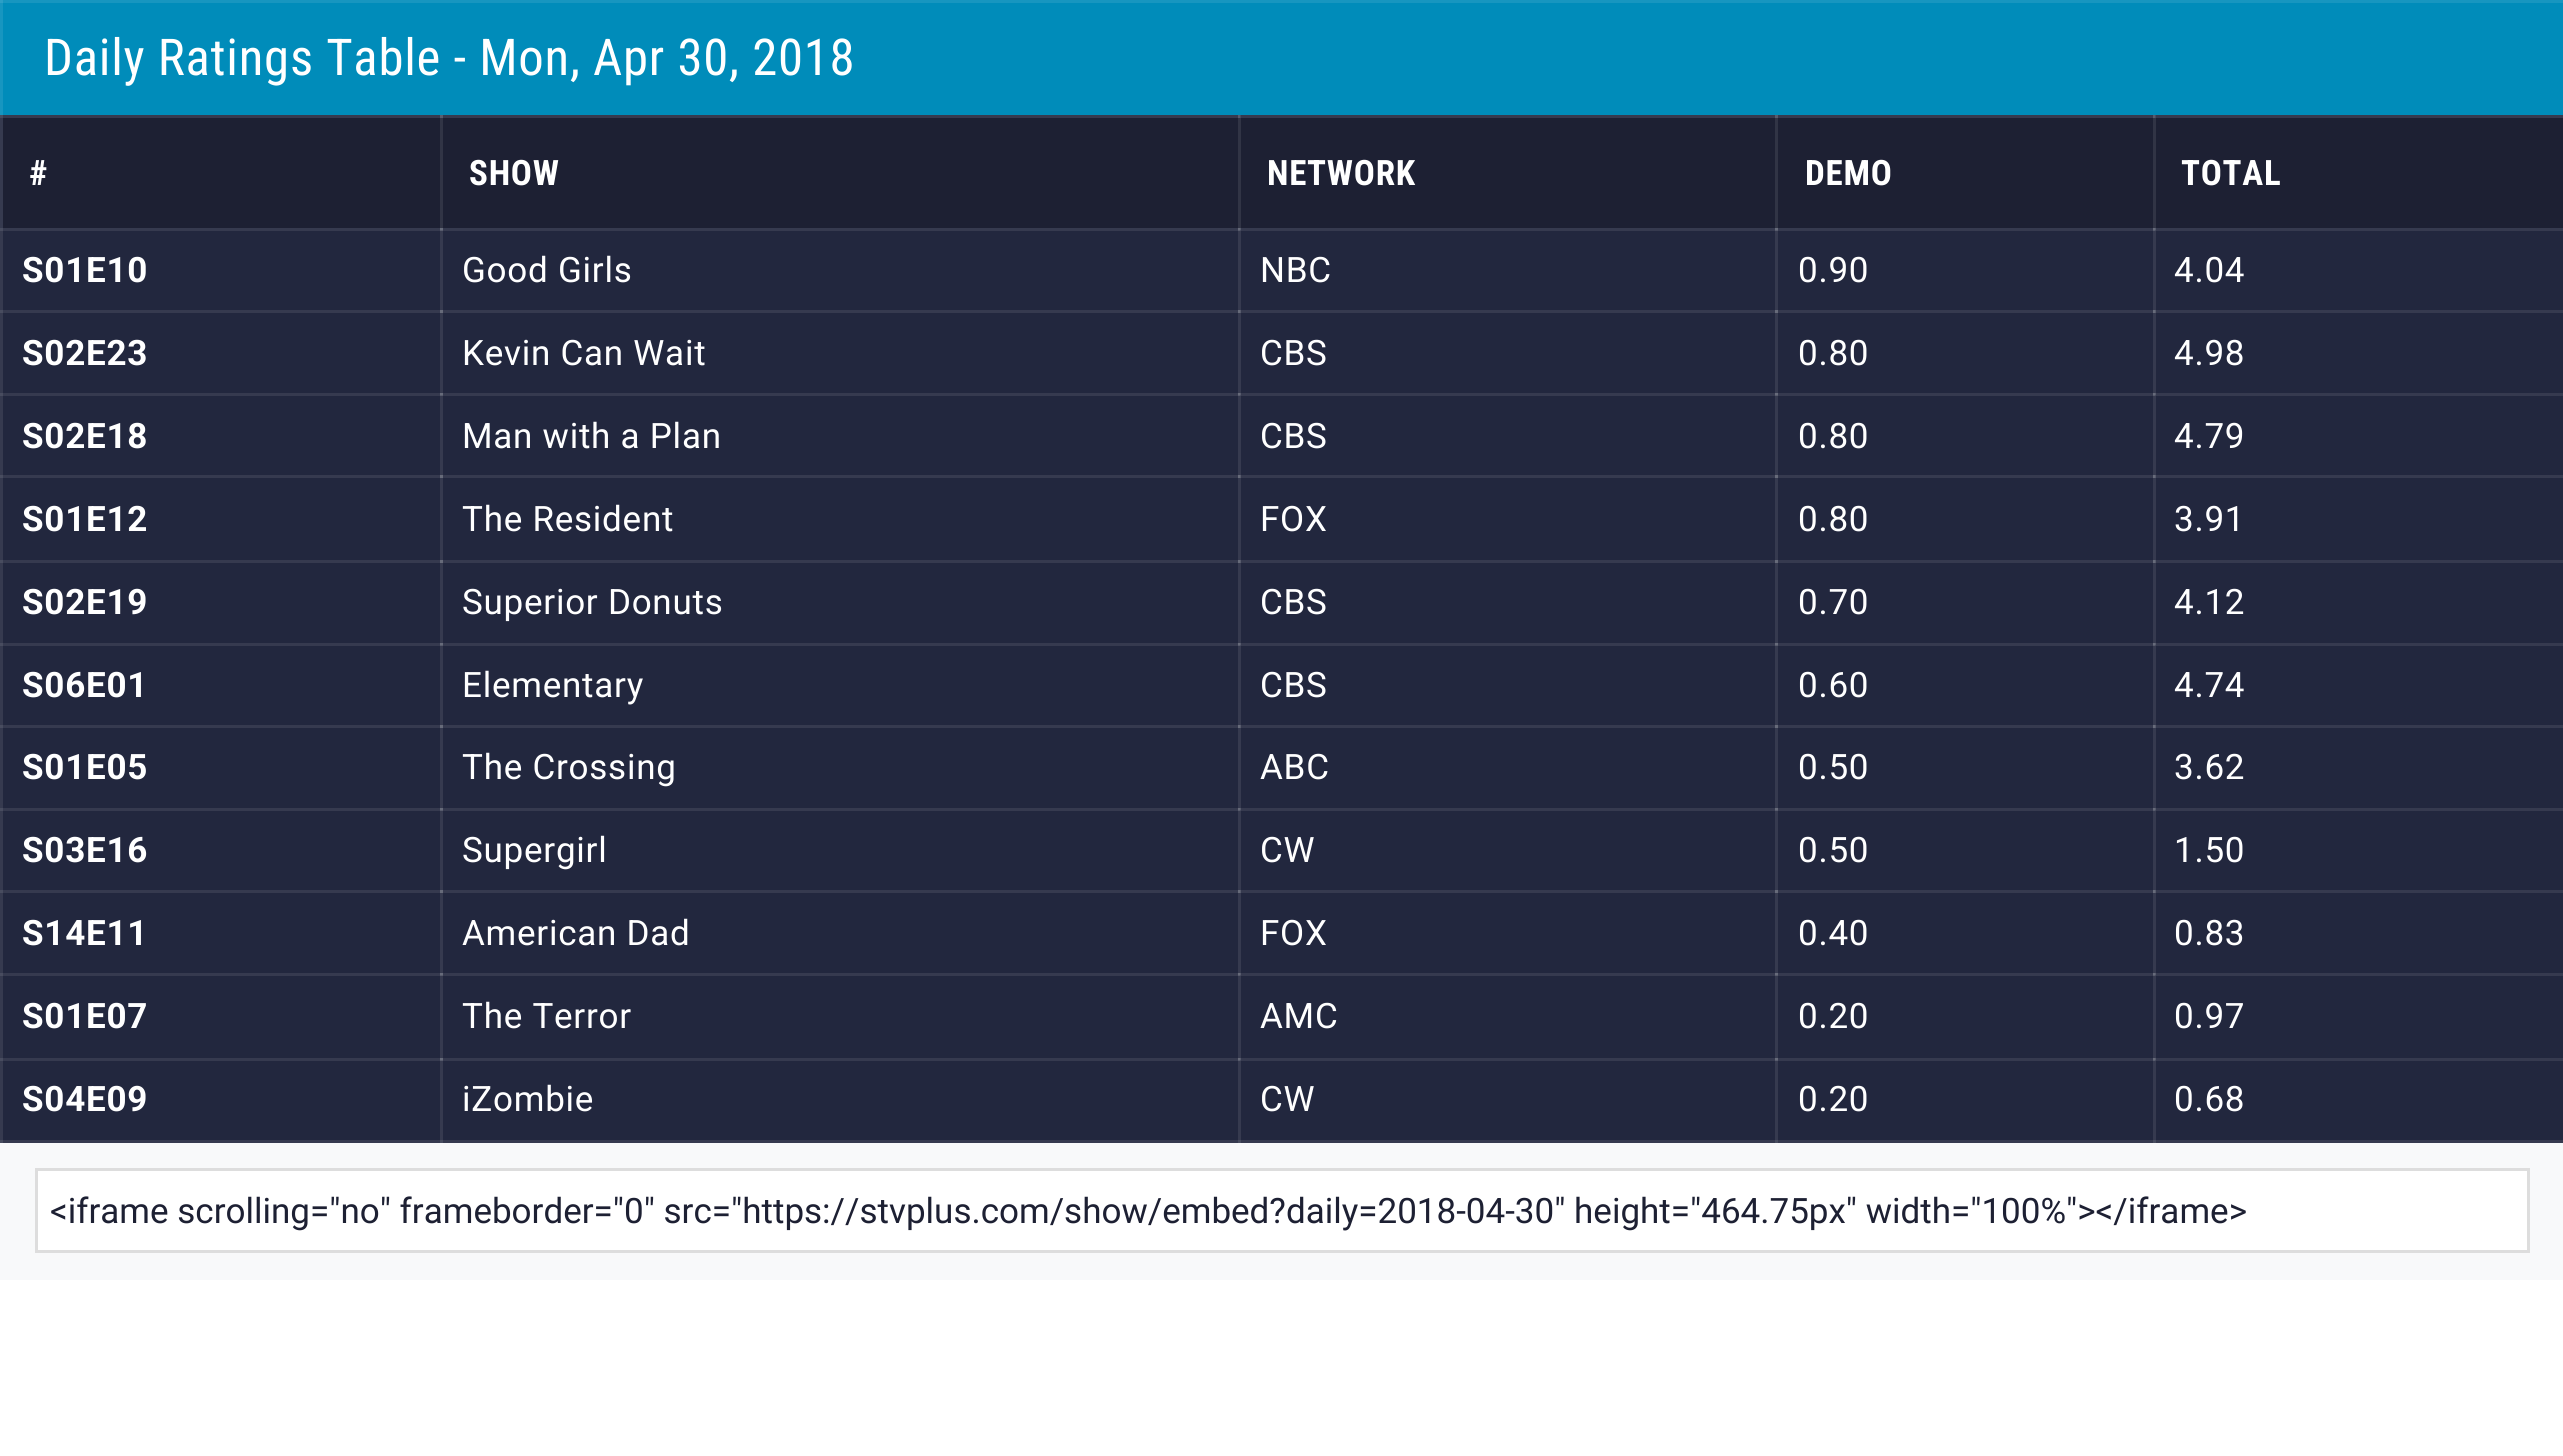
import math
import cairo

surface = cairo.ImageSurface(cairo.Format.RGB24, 2563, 1456)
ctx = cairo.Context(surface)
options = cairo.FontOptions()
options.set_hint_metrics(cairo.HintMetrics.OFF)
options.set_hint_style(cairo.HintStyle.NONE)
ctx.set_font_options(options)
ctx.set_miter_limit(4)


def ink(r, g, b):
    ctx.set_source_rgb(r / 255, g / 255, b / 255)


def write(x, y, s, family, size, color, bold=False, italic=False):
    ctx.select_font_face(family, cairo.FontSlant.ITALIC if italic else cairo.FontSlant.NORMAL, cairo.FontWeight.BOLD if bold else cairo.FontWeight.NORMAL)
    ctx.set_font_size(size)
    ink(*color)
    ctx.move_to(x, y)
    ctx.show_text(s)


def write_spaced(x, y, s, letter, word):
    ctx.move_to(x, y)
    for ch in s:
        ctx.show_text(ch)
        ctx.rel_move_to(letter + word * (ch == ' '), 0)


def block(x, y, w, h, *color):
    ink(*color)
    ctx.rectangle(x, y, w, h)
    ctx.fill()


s1 = dict(family="Roboto", size=35, color=(29, 32, 51))

ink(255, 255, 255)
ctx.paint()
block(3, 231, 2560, 909, 34, 39, 62)
block(0, 115, 2563, 3, 54, 58, 79)
block(440, 115, 3, 3, 88, 92, 109)
block(1238, 115, 3, 3, 72, 76, 95)
block(1238, 115, 2, 3, 88, 92, 109)
block(1775, 115, 3, 3, 88, 92, 109)
block(440, 228, 3, 915, 54, 58, 79)
block(0, 228, 443, 3, 54, 58, 79)
block(1238, 228, 3, 915, 54, 58, 79)
block(440, 228, 800, 3, 54, 58, 79)
block(440, 230, 3, 1, 88, 92, 109)
block(440, 228, 3, 2, 103, 107, 122)
block(1775, 228, 3, 915, 54, 58, 79)
block(1238, 228, 540, 3, 54, 58, 79)
block(1238, 230, 3, 1, 72, 76, 95)
block(1238, 228, 3, 2, 88, 92, 109)
block(1238, 228, 2, 3, 88, 92, 109)
block(1238, 228, 2, 2, 103, 107, 122)
block(2153, 228, 3, 915, 54, 58, 79)
block(1775, 228, 788, 3, 54, 58, 79)
block(1775, 230, 3, 1, 88, 92, 109)
block(1775, 228, 3, 2, 103, 107, 122)
block(0, 310, 2563, 3, 54, 58, 79)
block(440, 310, 3, 3, 103, 107, 122)
block(1238, 310, 3, 3, 88, 92, 109)
block(1238, 310, 2, 3, 103, 107, 122)
block(1775, 310, 3, 3, 103, 107, 122)
block(0, 393, 2563, 3, 54, 58, 79)
block(440, 395, 3, 1, 88, 92, 109)
block(440, 393, 3, 2, 103, 107, 122)
block(1238, 395, 3, 1, 72, 76, 95)
block(1238, 393, 3, 2, 88, 92, 109)
block(1238, 393, 2, 3, 88, 92, 109)
block(1238, 393, 2, 2, 103, 107, 122)
block(1775, 395, 3, 1, 88, 92, 109)
block(1775, 393, 3, 2, 103, 107, 122)
block(0, 475, 2563, 3, 54, 58, 79)
block(440, 475, 3, 3, 103, 107, 122)
block(1238, 475, 3, 3, 88, 92, 109)
block(1238, 475, 2, 3, 103, 107, 122)
block(1775, 475, 3, 3, 103, 107, 122)
block(0, 560, 2563, 3, 54, 58, 79)
block(440, 560, 3, 3, 103, 107, 122)
block(1238, 560, 3, 3, 88, 92, 109)
block(1238, 560, 2, 3, 103, 107, 122)
block(1775, 560, 3, 3, 103, 107, 122)
block(0, 643, 2563, 3, 54, 58, 79)
block(440, 645, 3, 1, 88, 92, 109)
block(440, 643, 3, 2, 103, 107, 122)
block(1238, 645, 3, 1, 72, 76, 95)
block(1238, 643, 3, 2, 88, 92, 109)
block(1238, 643, 2, 3, 88, 92, 109)
block(1238, 643, 2, 2, 103, 107, 122)
block(1775, 645, 3, 1, 88, 92, 109)
block(1775, 643, 3, 2, 103, 107, 122)
block(0, 725, 2563, 3, 54, 58, 79)
block(440, 725, 3, 3, 103, 107, 122)
block(1238, 725, 3, 3, 88, 92, 109)
block(1238, 725, 2, 3, 103, 107, 122)
block(1775, 725, 3, 3, 103, 107, 122)
block(0, 808, 2563, 3, 54, 58, 79)
block(440, 810, 3, 1, 88, 92, 109)
block(440, 808, 3, 2, 103, 107, 122)
block(1238, 810, 3, 1, 72, 76, 95)
block(1238, 808, 3, 2, 88, 92, 109)
block(1238, 808, 2, 3, 88, 92, 109)
block(1238, 808, 2, 2, 103, 107, 122)
block(1775, 810, 3, 1, 88, 92, 109)
block(1775, 808, 3, 2, 103, 107, 122)
block(0, 890, 2563, 3, 54, 58, 79)
block(440, 890, 3, 3, 103, 107, 122)
block(1238, 890, 3, 3, 88, 92, 109)
block(1238, 890, 2, 3, 103, 107, 122)
block(1775, 890, 3, 3, 103, 107, 122)
block(0, 973, 2563, 3, 54, 58, 79)
block(440, 975, 3, 1, 88, 92, 109)
block(440, 973, 3, 2, 103, 107, 122)
block(1238, 975, 3, 1, 72, 76, 95)
block(1238, 973, 3, 2, 88, 92, 109)
block(1238, 973, 2, 3, 88, 92, 109)
block(1238, 973, 2, 2, 103, 107, 122)
block(1775, 975, 3, 1, 88, 92, 109)
block(1775, 973, 3, 2, 103, 107, 122)
block(0, 1058, 2563, 3, 54, 58, 79)
block(440, 1060, 3, 1, 88, 92, 109)
block(440, 1058, 3, 2, 103, 107, 122)
block(1238, 1060, 3, 1, 72, 76, 95)
block(1238, 1058, 3, 2, 88, 92, 109)
block(1238, 1058, 2, 3, 88, 92, 109)
block(1238, 1058, 2, 2, 103, 107, 122)
block(1775, 1060, 3, 1, 88, 92, 109)
block(1775, 1058, 3, 2, 103, 107, 122)
block(0, 118, 3, 1025, 54, 58, 79)
block(0, 115, 3, 3, 72, 76, 95)
block(0, 228, 3, 3, 72, 76, 95)
block(0, 310, 3, 3, 72, 76, 95)
block(0, 393, 3, 3, 72, 76, 95)
block(0, 475, 3, 3, 72, 76, 95)
block(0, 560, 3, 3, 72, 76, 95)
block(0, 643, 3, 3, 72, 76, 95)
block(0, 725, 3, 3, 72, 76, 95)
block(0, 808, 3, 3, 72, 76, 95)
block(0, 890, 3, 3, 72, 76, 95)
block(0, 973, 3, 3, 72, 76, 95)
block(0, 1058, 3, 3, 72, 76, 95)
block(0, 0, 3, 115, 23, 150, 192)
block(0, 0, 2563, 3, 23, 150, 192)
block(0, 0, 3, 3, 44, 159, 198)
block(0, 1140, 2563, 3, 54, 58, 79)
block(440, 1140, 3, 3, 72, 76, 95)
block(1238, 1140, 3, 3, 72, 76, 95)
block(1775, 1140, 3, 3, 72, 76, 95)
block(2153, 1140, 3, 3, 72, 76, 95)
block(0, 1140, 3, 3, 72, 76, 95)
block(3, 3, 2560, 112, 0, 140, 186)
ctx.select_font_face("Roboto Condensed")
ctx.set_font_size(50.75)
ink(255, 255, 255)
write_spaced(44, 75, "Daily Ratings Table - Mon, Apr 30, 2018", 0.75, 0)
block(3, 118, 437, 110, 29, 32, 51)
block(440, 118, 3, 110, 49, 52, 69)
ctx.select_font_face("Roboto Condensed", cairo.FontSlant.NORMAL, cairo.FontWeight.BOLD)
ctx.set_font_size(35)
ink(255, 255, 255)
write_spaced(29, 185, "#", 0.75, 0)
block(443, 118, 795, 110, 29, 32, 51)
block(1238, 118, 3, 110, 49, 52, 69)
ink(255, 255, 255)
write_spaced(469, 185, "SHOW", 0.75, 0)
block(1241, 118, 534, 110, 29, 32, 51)
block(1775, 118, 3, 110, 49, 52, 69)
ink(255, 255, 255)
write_spaced(1267, 185, "NETWORK", 0.75, 0)
block(1778, 118, 375, 110, 29, 32, 51)
ink(255, 255, 255)
write_spaced(1805, 185, "DEMO", 0.75, 0)
block(2156, 118, 407, 110, 29, 32, 51)
block(2153, 118, 3, 110, 49, 52, 69)
block(2153, 115, 3, 3, 72, 76, 95)
block(2153, 115, 2, 3, 88, 92, 109)
ink(255, 255, 255)
write_spaced(2181, 185, "TOTAL", 0.75, 0)
ctx.select_font_face("Roboto", cairo.FontSlant.NORMAL, cairo.FontWeight.BOLD)
write_spaced(22, 282, "S01E10", 0.75, 0)
ctx.select_font_face("Roboto")
write_spaced(462, 282, "Good Girls", 0.75, 0)
write_spaced(1260, 282, "NBC", 0.75, 0)
write_spaced(1798, 282, "0.90", 0.75, 0)
block(2153, 230, 3, 1, 72, 76, 95)
block(2153, 228, 3, 2, 88, 92, 109)
block(2153, 228, 2, 3, 88, 92, 109)
block(2153, 228, 2, 2, 103, 107, 122)
ink(255, 255, 255)
write_spaced(2174, 282, "4.04", 0.75, 0)
ctx.select_font_face("Roboto", cairo.FontSlant.NORMAL, cairo.FontWeight.BOLD)
write_spaced(22, 365, "S02E23", 0.75, 0)
ctx.select_font_face("Roboto")
write_spaced(462, 365, "Kevin Can Wait", 0.75, 0)
write_spaced(1260, 365, "CBS", 0.75, 0)
write_spaced(1798, 365, "0.80", 0.75, 0)
block(2153, 310, 3, 3, 88, 92, 109)
block(2153, 310, 2, 3, 103, 107, 122)
ink(255, 255, 255)
write_spaced(2174, 365, "4.98", 0.75, 0)
ctx.select_font_face("Roboto", cairo.FontSlant.NORMAL, cairo.FontWeight.BOLD)
write_spaced(22, 448, "S02E18", 0.75, 0)
ctx.select_font_face("Roboto")
write_spaced(462, 448, "Man with a Plan", 0.75, 0)
write_spaced(1260, 448, "CBS", 0.75, 0)
write_spaced(1798, 448, "0.80", 0.75, 0)
block(2153, 395, 3, 1, 72, 76, 95)
block(2153, 393, 3, 2, 88, 92, 109)
block(2153, 393, 2, 3, 88, 92, 109)
block(2153, 393, 2, 2, 103, 107, 122)
ink(255, 255, 255)
write_spaced(2174, 448, "4.79", 0.75, 0)
ctx.select_font_face("Roboto", cairo.FontSlant.NORMAL, cairo.FontWeight.BOLD)
write_spaced(22, 531, "S01E12", 0.75, 0)
ctx.select_font_face("Roboto")
write_spaced(462, 531, "The Resident", 0.75, 0)
write_spaced(1260, 531, "FOX", 0.75, 0)
write_spaced(1798, 531, "0.80", 0.75, 0)
block(2153, 475, 3, 3, 88, 92, 109)
block(2153, 475, 2, 3, 103, 107, 122)
ink(255, 255, 255)
write_spaced(2174, 531, "3.91", 0.75, 0)
ctx.select_font_face("Roboto", cairo.FontSlant.NORMAL, cairo.FontWeight.BOLD)
write_spaced(22, 614, "S02E19", 0.75, 0)
ctx.select_font_face("Roboto")
write_spaced(462, 614, "Superior Donuts", 0.75, 0)
write_spaced(1260, 614, "CBS", 0.75, 0)
write_spaced(1798, 614, "0.70", 0.75, 0)
block(2153, 560, 3, 3, 88, 92, 109)
block(2153, 560, 2, 3, 103, 107, 122)
ink(255, 255, 255)
write_spaced(2174, 614, "4.12", 0.75, 0)
ctx.select_font_face("Roboto", cairo.FontSlant.NORMAL, cairo.FontWeight.BOLD)
write_spaced(22, 697, "S06E01", 0.75, 0)
ctx.select_font_face("Roboto")
write_spaced(462, 697, "Elementary", 0.75, 0)
write_spaced(1260, 697, "CBS", 0.75, 0)
write_spaced(1798, 697, "0.60", 0.75, 0)
block(2153, 645, 3, 1, 72, 76, 95)
block(2153, 643, 3, 2, 88, 92, 109)
block(2153, 643, 2, 3, 88, 92, 109)
block(2153, 643, 2, 2, 103, 107, 122)
ink(255, 255, 255)
write_spaced(2174, 697, "4.74", 0.75, 0)
ctx.select_font_face("Roboto", cairo.FontSlant.NORMAL, cairo.FontWeight.BOLD)
write_spaced(22, 779, "S01E05", 0.75, 0)
ctx.select_font_face("Roboto")
write_spaced(462, 779, "The Crossing", 0.75, 0)
write_spaced(1260, 779, "ABC", 0.75, 0)
write_spaced(1798, 779, "0.50", 0.75, 0)
block(2153, 725, 3, 3, 88, 92, 109)
block(2153, 725, 2, 3, 103, 107, 122)
ink(255, 255, 255)
write_spaced(2174, 779, "3.62", 0.75, 0)
ctx.select_font_face("Roboto", cairo.FontSlant.NORMAL, cairo.FontWeight.BOLD)
write_spaced(22, 862, "S03E16", 0.75, 0)
ctx.select_font_face("Roboto")
write_spaced(462, 862, "Supergirl", 0.75, 0)
write_spaced(1260, 862, "CW", 0.75, 0)
write_spaced(1798, 862, "0.50", 0.75, 0)
block(2153, 810, 3, 1, 72, 76, 95)
block(2153, 808, 3, 2, 88, 92, 109)
block(2153, 808, 2, 3, 88, 92, 109)
block(2153, 808, 2, 2, 103, 107, 122)
ink(255, 255, 255)
write_spaced(2174, 862, "1.50", 0.75, 0)
ctx.select_font_face("Roboto", cairo.FontSlant.NORMAL, cairo.FontWeight.BOLD)
write_spaced(22, 945, "S14E11", 0.75, 0)
ctx.select_font_face("Roboto")
write_spaced(462, 945, "American Dad", 0.75, 0)
write_spaced(1260, 945, "FOX", 0.75, 0)
write_spaced(1798, 945, "0.40", 0.75, 0)
block(2153, 890, 3, 3, 88, 92, 109)
block(2153, 890, 2, 3, 103, 107, 122)
ink(255, 255, 255)
write_spaced(2174, 945, "0.83", 0.75, 0)
ctx.select_font_face("Roboto", cairo.FontSlant.NORMAL, cairo.FontWeight.BOLD)
write_spaced(22, 1028, "S01E07", 0.75, 0)
ctx.select_font_face("Roboto")
write_spaced(462, 1028, "The Terror", 0.75, 0)
write_spaced(1260, 1028, "AMC", 0.75, 0)
write_spaced(1798, 1028, "0.20", 0.75, 0)
block(2153, 975, 3, 1, 72, 76, 95)
block(2153, 973, 3, 2, 88, 92, 109)
block(2153, 973, 2, 3, 88, 92, 109)
block(2153, 973, 2, 2, 103, 107, 122)
ink(255, 255, 255)
write_spaced(2174, 1028, "0.97", 0.75, 0)
ctx.select_font_face("Roboto", cairo.FontSlant.NORMAL, cairo.FontWeight.BOLD)
write_spaced(22, 1111, "S04E09", 0.75, 0)
ctx.select_font_face("Roboto")
write_spaced(462, 1111, "iZombie", 0.75, 0)
write_spaced(1260, 1111, "CW", 0.75, 0)
write_spaced(1798, 1111, "0.20", 0.75, 0)
block(2153, 1060, 3, 1, 72, 76, 95)
block(2153, 1058, 3, 2, 88, 92, 109)
block(2153, 1058, 2, 3, 88, 92, 109)
block(2153, 1058, 2, 2, 103, 107, 122)
ink(255, 255, 255)
write_spaced(2174, 1111, "0.68", 0.75, 0)
block(0, 1143, 2563, 137, 248, 249, 250)
ink(255, 255, 255)
ctx.rectangle(36.5, 1169.5, 2492, 82)
ctx.fill_preserve()
ink(221, 221, 221)
ctx.set_line_width(3)
ctx.stroke()
write(50, 1223, "<iframe scrolling=\"no\" frameborder=\"0\" src=\"https://stvplus.com/show/embed?daily=2018-04-30\" height=\"464.75px\" width=\"100%\"></iframe>", **s1)
surface.write_to_png("screenshot.png")
